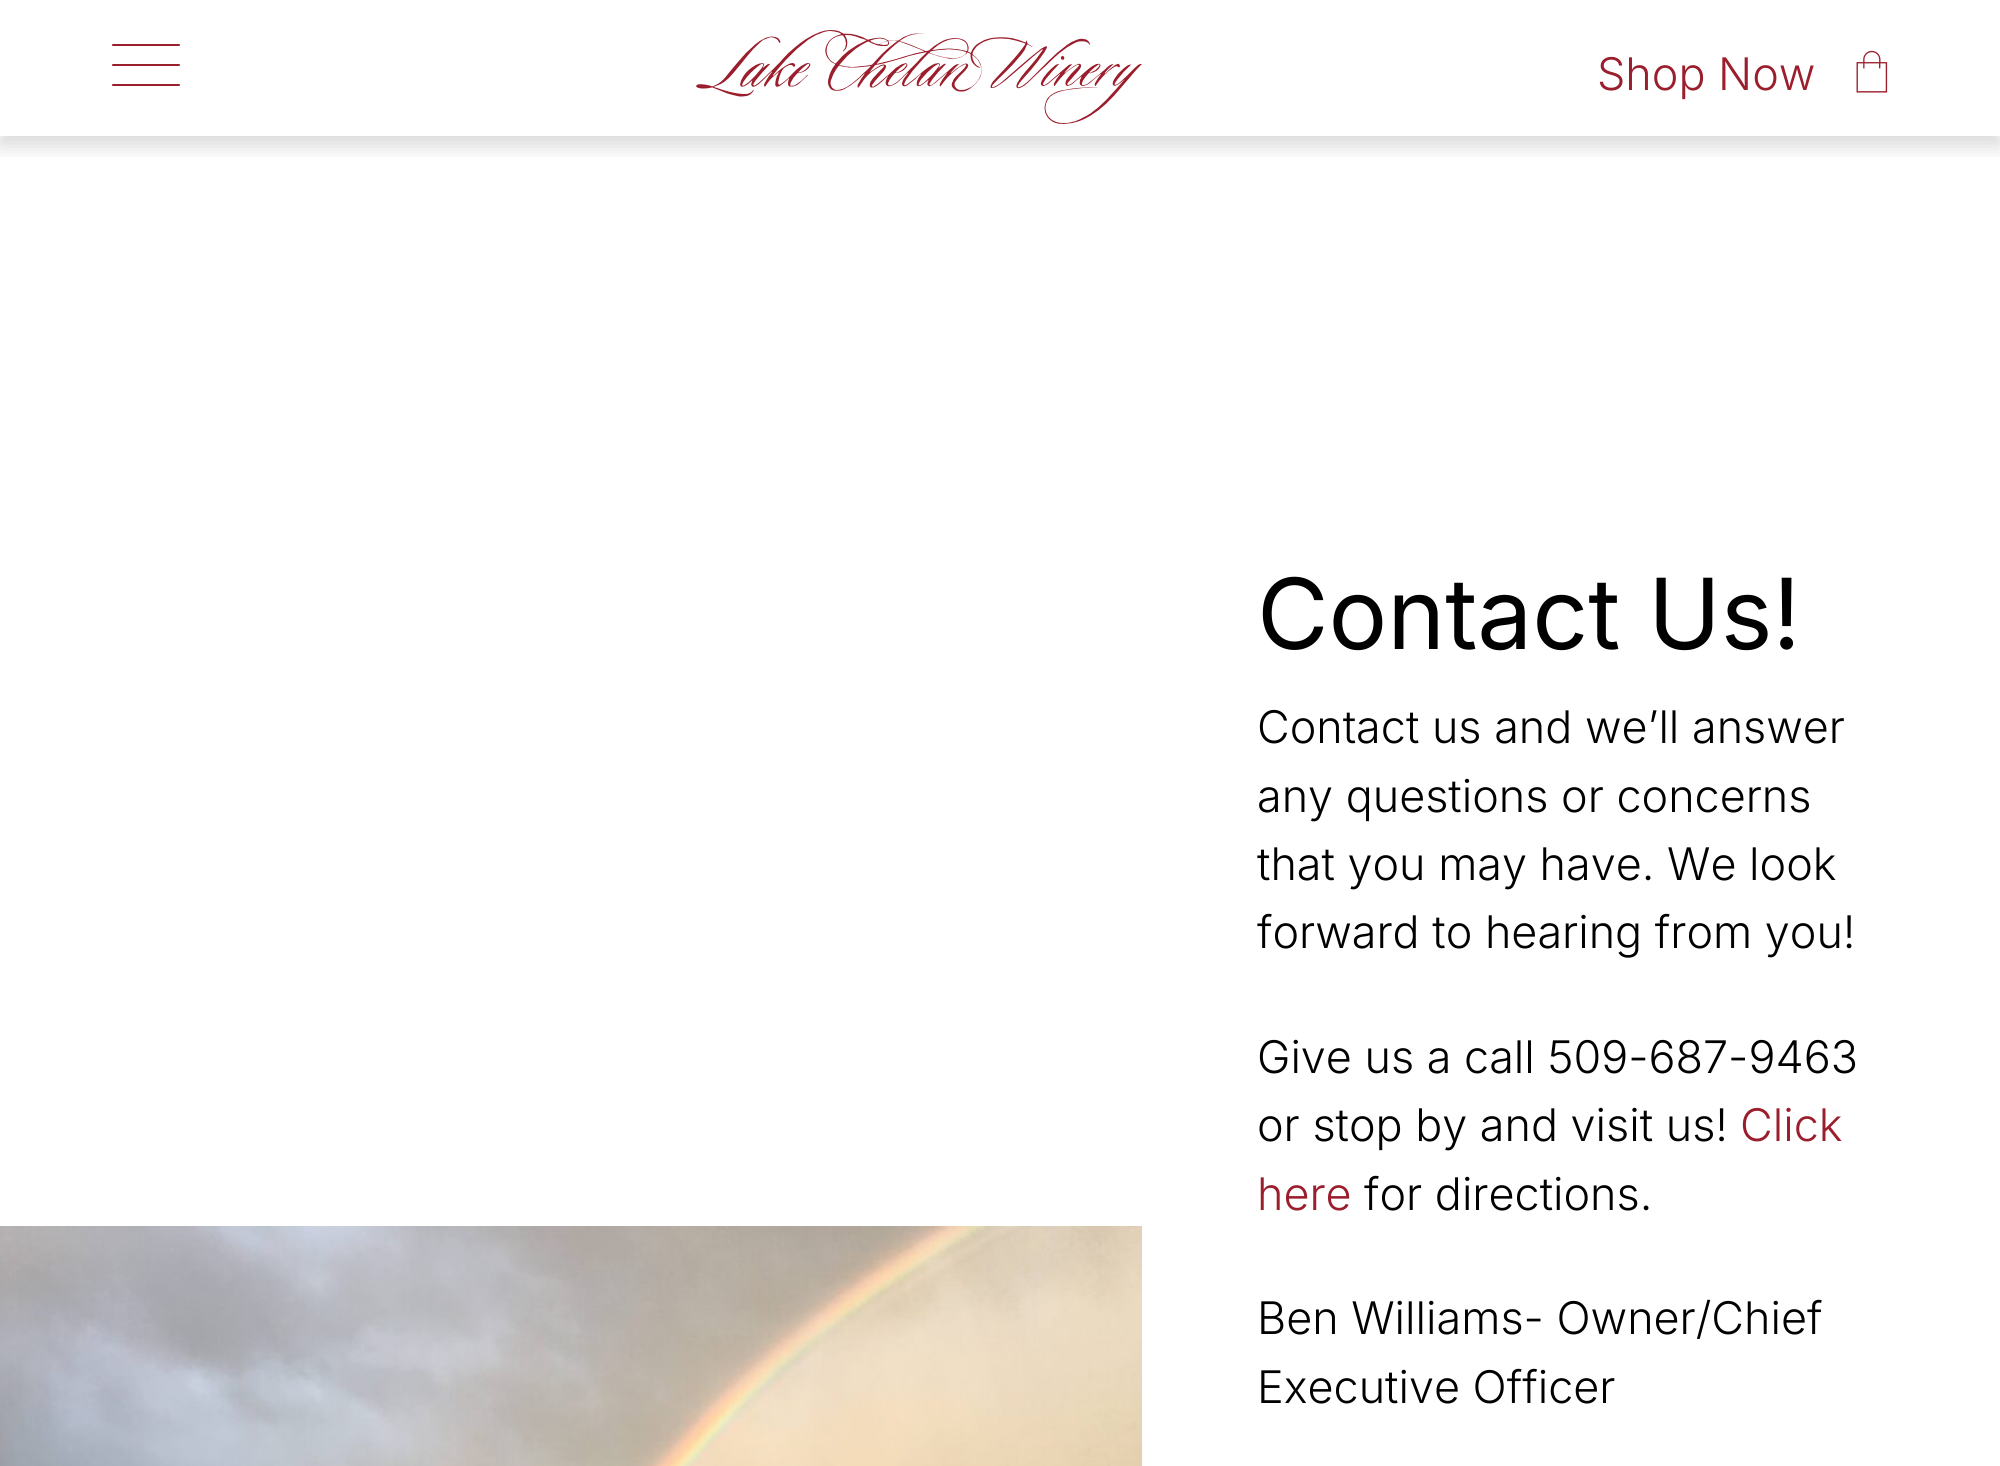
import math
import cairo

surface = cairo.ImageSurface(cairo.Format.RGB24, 2000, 1466)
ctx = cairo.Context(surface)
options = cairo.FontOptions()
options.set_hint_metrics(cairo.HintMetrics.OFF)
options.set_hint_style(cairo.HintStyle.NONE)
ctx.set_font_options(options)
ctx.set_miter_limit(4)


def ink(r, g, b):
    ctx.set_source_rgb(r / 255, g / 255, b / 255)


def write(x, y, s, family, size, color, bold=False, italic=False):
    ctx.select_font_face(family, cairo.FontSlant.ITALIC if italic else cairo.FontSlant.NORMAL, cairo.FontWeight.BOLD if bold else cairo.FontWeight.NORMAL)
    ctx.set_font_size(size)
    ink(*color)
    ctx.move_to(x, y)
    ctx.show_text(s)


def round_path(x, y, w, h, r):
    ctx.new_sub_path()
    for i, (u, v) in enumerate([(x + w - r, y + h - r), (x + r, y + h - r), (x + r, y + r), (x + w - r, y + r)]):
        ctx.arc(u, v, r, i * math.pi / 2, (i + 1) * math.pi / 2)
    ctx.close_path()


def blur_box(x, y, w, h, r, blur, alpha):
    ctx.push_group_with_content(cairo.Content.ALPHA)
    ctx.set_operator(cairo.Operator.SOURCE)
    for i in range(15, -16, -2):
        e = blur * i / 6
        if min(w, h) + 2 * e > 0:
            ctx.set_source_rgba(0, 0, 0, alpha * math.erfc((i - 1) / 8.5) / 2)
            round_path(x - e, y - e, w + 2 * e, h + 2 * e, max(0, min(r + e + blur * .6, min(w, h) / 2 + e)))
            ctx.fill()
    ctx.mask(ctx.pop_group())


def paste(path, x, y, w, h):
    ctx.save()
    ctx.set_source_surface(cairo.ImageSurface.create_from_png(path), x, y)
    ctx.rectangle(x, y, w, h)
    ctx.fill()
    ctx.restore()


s1 = dict(family="Inter Light", size=44.9, color=(155, 30, 45))
s2 = dict(family="Inter", size=98, color=(0, 0, 0))
s3 = dict(family="Inter Light", size=44.9, color=(0, 0, 0))

ink(255, 255, 255)
ctx.paint()
ctx.save()
ctx.rectangle(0, 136, 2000, 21)
ctx.clip()
ink(0, 0, 0)
blur_box(0, 10, 2000, 136, 0, 10, 0.15)
ctx.restore()
ink(155, 30, 45)
round_path(112, 44, 68, 2, 1)
ctx.fill()
round_path(112, 64, 68, 2, 1)
ctx.fill()
round_path(112, 84, 68, 2, 1)
ctx.fill()
paste("pic1.png", 696, 30, 446, 94)
write(1597, 90, "Shop Now", **s1)
paste("pic2.png", 1856, 50, 32, 43)
paste("pic3.png", 0, 1226, 1142, 240)
write(1257, 649, "Contact Us!", **s2)
write(1257, 743, "Contact us and we’ll answer", **s3)
write(1257, 812, "any questions or concerns", **s3)
write(1257, 880, "that you may have. We look", **s3)
write(1257, 948, "forward to hearing from you!", **s3)
write(1257, 1073, "Give us a call 509-687-9463", **s3)
write(1257, 1141, "or stop by and visit us!", **s3)
write(1740, 1141, "Click", **s1)
write(1257, 1210, "here", **s1)
write(1364, 1210, "for directions.", **s3)
write(1257, 1334, "Ben Williams- Owner/Chief", **s3)
write(1257, 1403, "Executive Officer", **s3)
surface.write_to_png("screenshot.png")
